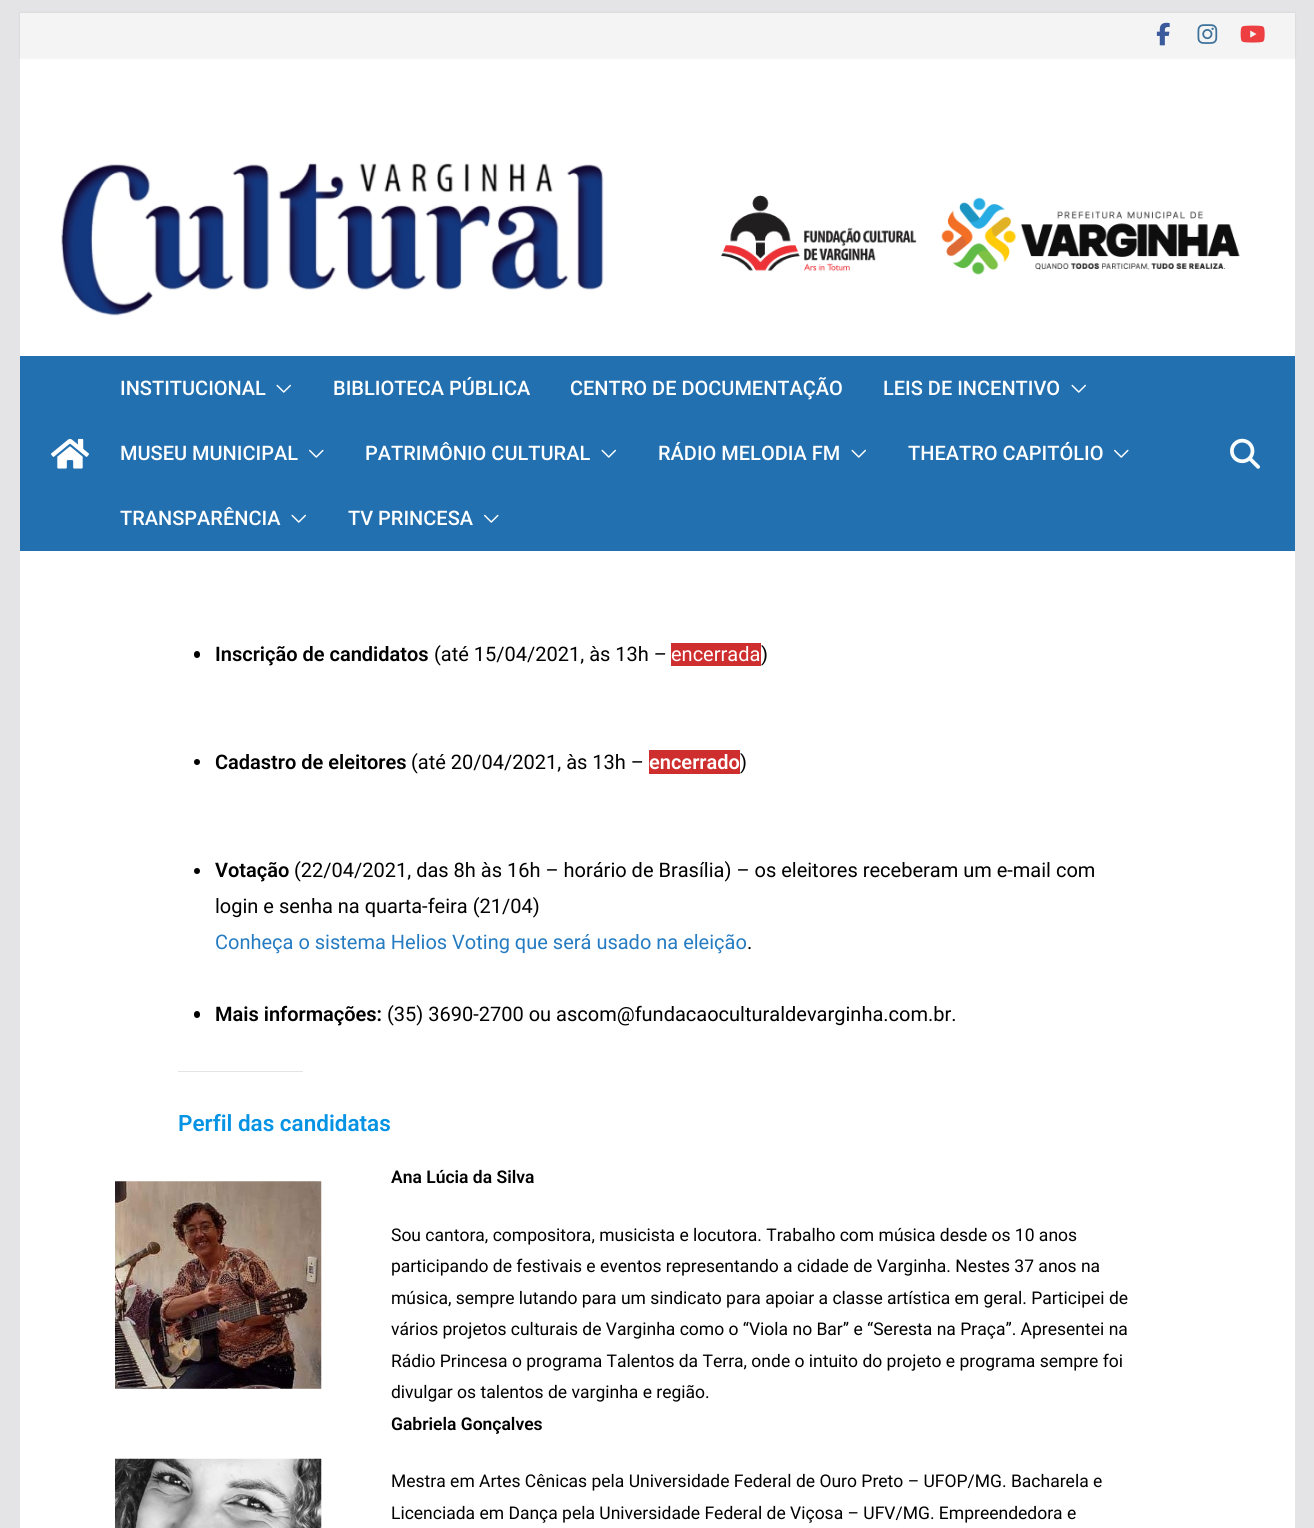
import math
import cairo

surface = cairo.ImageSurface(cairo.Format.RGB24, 1314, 1528)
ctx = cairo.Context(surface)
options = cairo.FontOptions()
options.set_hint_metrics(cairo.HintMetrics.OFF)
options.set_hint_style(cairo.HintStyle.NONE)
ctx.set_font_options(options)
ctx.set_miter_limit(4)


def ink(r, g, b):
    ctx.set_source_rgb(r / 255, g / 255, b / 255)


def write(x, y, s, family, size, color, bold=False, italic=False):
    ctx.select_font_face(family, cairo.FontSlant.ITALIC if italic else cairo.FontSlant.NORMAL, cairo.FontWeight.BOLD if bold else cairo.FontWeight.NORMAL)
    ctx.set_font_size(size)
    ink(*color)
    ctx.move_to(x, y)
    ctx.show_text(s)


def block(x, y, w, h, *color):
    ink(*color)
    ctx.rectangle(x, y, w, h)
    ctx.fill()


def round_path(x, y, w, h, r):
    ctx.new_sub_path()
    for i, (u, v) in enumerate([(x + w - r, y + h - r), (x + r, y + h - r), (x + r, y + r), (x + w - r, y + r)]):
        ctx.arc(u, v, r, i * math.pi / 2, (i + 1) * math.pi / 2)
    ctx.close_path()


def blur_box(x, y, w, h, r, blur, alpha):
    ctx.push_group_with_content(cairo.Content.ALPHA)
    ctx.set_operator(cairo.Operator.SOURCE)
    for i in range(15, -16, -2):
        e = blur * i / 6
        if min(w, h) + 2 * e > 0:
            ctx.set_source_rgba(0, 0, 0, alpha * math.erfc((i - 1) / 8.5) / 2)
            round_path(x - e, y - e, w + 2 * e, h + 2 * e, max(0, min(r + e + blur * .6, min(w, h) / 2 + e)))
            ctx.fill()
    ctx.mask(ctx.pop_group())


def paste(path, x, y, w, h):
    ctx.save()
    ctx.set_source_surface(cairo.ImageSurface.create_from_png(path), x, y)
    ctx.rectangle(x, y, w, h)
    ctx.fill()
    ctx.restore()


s1 = dict(family="Roboto Medium", size=20, color=(255, 255, 255))
s2 = dict(family="Roboto SemiBold", size=20, color=(0, 0, 0))
s3 = dict(family="Roboto", size=20, color=(0, 0, 0))
s4 = dict(family="Roboto", size=20, color=(255, 255, 255))
s5 = dict(family="Roboto SemiBold", size=20, color=(255, 255, 255))
s6 = dict(family="Roboto", size=20, color=(37, 123, 193))
s7 = dict(family="Roboto SemiBold", size=22.5, color=(6, 147, 227))
s8 = dict(family="Roboto SemiBold", size=17.5, color=(0, 0, 0))
s9 = dict(family="Roboto", size=17.5, color=(0, 0, 0))

ink(228, 228, 231)
ctx.paint()
block(20, 58, 1275, 298, 255, 255, 255)
ink(0, 0, 0)
blur_box(20, 13, 1275, 45, 0, 1, 0.1)
block(20, 13, 1275, 45, 244, 244, 245)
paste("pic1.png", 1156, 22, 14, 24)
paste("pic2.png", 1197, 24, 21, 20)
paste("pic3.png", 1240, 25, 25, 18)
paste("pic4.png", 61, 163, 1179, 153)
block(20, 356, 1275, 195, 34, 112, 176)
paste("pic5.png", 51, 438, 38, 31)
write(120, 395, "INSTITUCIONAL", **s1)
paste("pic6.png", 276, 384, 15, 9)
write(333, 395, "BIBLIOTECA PÚBLICA", **s1)
write(570, 395, "CENTRO DE DOCUMENTAÇÃO", **s1)
write(883, 395, "LEIS DE INCENTIVO", **s1)
paste("pic6.png", 1071, 384, 15, 9)
write(120, 460, "MUSEU MUNICIPAL", **s1)
paste("pic7.png", 309, 449, 15, 9)
write(365, 460, "PATRIMÔNIO CULTURAL", **s1)
paste("pic6.png", 601, 449, 15, 9)
write(658, 460, "RÁDIO MELODIA FM", **s1)
paste("pic6.png", 851, 449, 15, 9)
write(908, 460, "THEATRO CAPITÓLIO", **s1)
paste("pic7.png", 1114, 449, 15, 9)
write(120, 525, "TRANSPARÊNCIA", **s1)
paste("pic6.png", 291, 514, 15, 9)
write(348, 525, "TV PRINCESA", **s1)
paste("pic7.png", 484, 514, 15, 9)
paste("pic8.png", 1230, 438, 30, 31)
block(20, 551, 1275, 977, 255, 255, 255)
ink(0, 0, 0)
round_path(194, 651, 6, 7, 3)
ctx.fill()
write(215, 661, "Inscrição de candidatos", **s2)
write(434, 661, "(até 15/04/2021, às 13h –", **s3)
block(671, 643, 90, 23, 207, 46, 46)
write(671, 661, "encerrada", **s4)
write(761, 661, ")", **s3)
ctx.new_path()
ctx.arc(197, 762, 3, 0, 2 * math.pi)
ctx.fill()
write(215, 769, "Cadastro de eleitores", **s2)
write(411, 769, "(até 20/04/2021, às 13h –", **s3)
block(649, 750, 91, 24, 207, 46, 46)
write(649, 769, "encerrado", **s5)
write(740, 769, ")", **s3)
ctx.new_path()
ctx.arc(197, 871, 3, 0, 2 * math.pi)
ctx.fill()
write(215, 877, "Votação", **s2)
write(294, 877, "(22/04/2021, das 8h às 16h – horário de Brasília) – os eleitores receberam um e-mail com", **s3)
write(215, 913, "login e senha na quarta-feira (21/04)", **s3)
write(215, 949, "Conheça o sistema Helios Voting que será usado na eleição", **s6)
write(747, 949, ".", **s3)
round_path(194, 1011, 6, 7, 3)
ctx.fill()
write(215, 1021, "Mais informações:", **s2)
write(387, 1021, "(35) 3690-2700 ou ascom@fundacaoculturaldevarginha.com.br.", **s3)
block(178, 1071, 125, 1, 228, 228, 231)
write(178, 1131, "Perfil das candidatas", **s7)
paste("pic9.png", 115, 1181, 207, 208)
write(391, 1183, "Ana Lúcia da Silva", **s8)
write(391, 1241, "Sou cantora, compositora, musicista e locutora. Trabalho com música desde os 10 anos", **s9)
write(391, 1272, "participando de festivais e eventos representando a cidade de Varginha. Nestes 37 anos na", **s9)
write(391, 1304, "música, sempre lutando para um sindicato para apoiar a classe artística em geral. Participei de", **s9)
write(391, 1335, "vários projetos culturais de Varginha como o “Viola no Bar” e “Seresta na Praça”. Apresentei na", **s9)
write(391, 1367, "Rádio Princesa o programa Talentos da Terra, onde o intuito do projeto e programa sempre foi", **s9)
write(391, 1398, "divulgar os talentos de varginha e região.", **s9)
paste("pic10.png", 115, 1458, 207, 70)
write(391, 1430, "Gabriela Gonçalves", **s8)
write(391, 1487, "Mestra em Artes Cênicas pela Universidade Federal de Ouro Preto – UFOP/MG. Bacharela e", **s9)
write(391, 1519, "Licenciada em Dança pela Universidade Federal de Viçosa – UFV/MG. Empreendedora e", **s9)
surface.write_to_png("screenshot.png")
